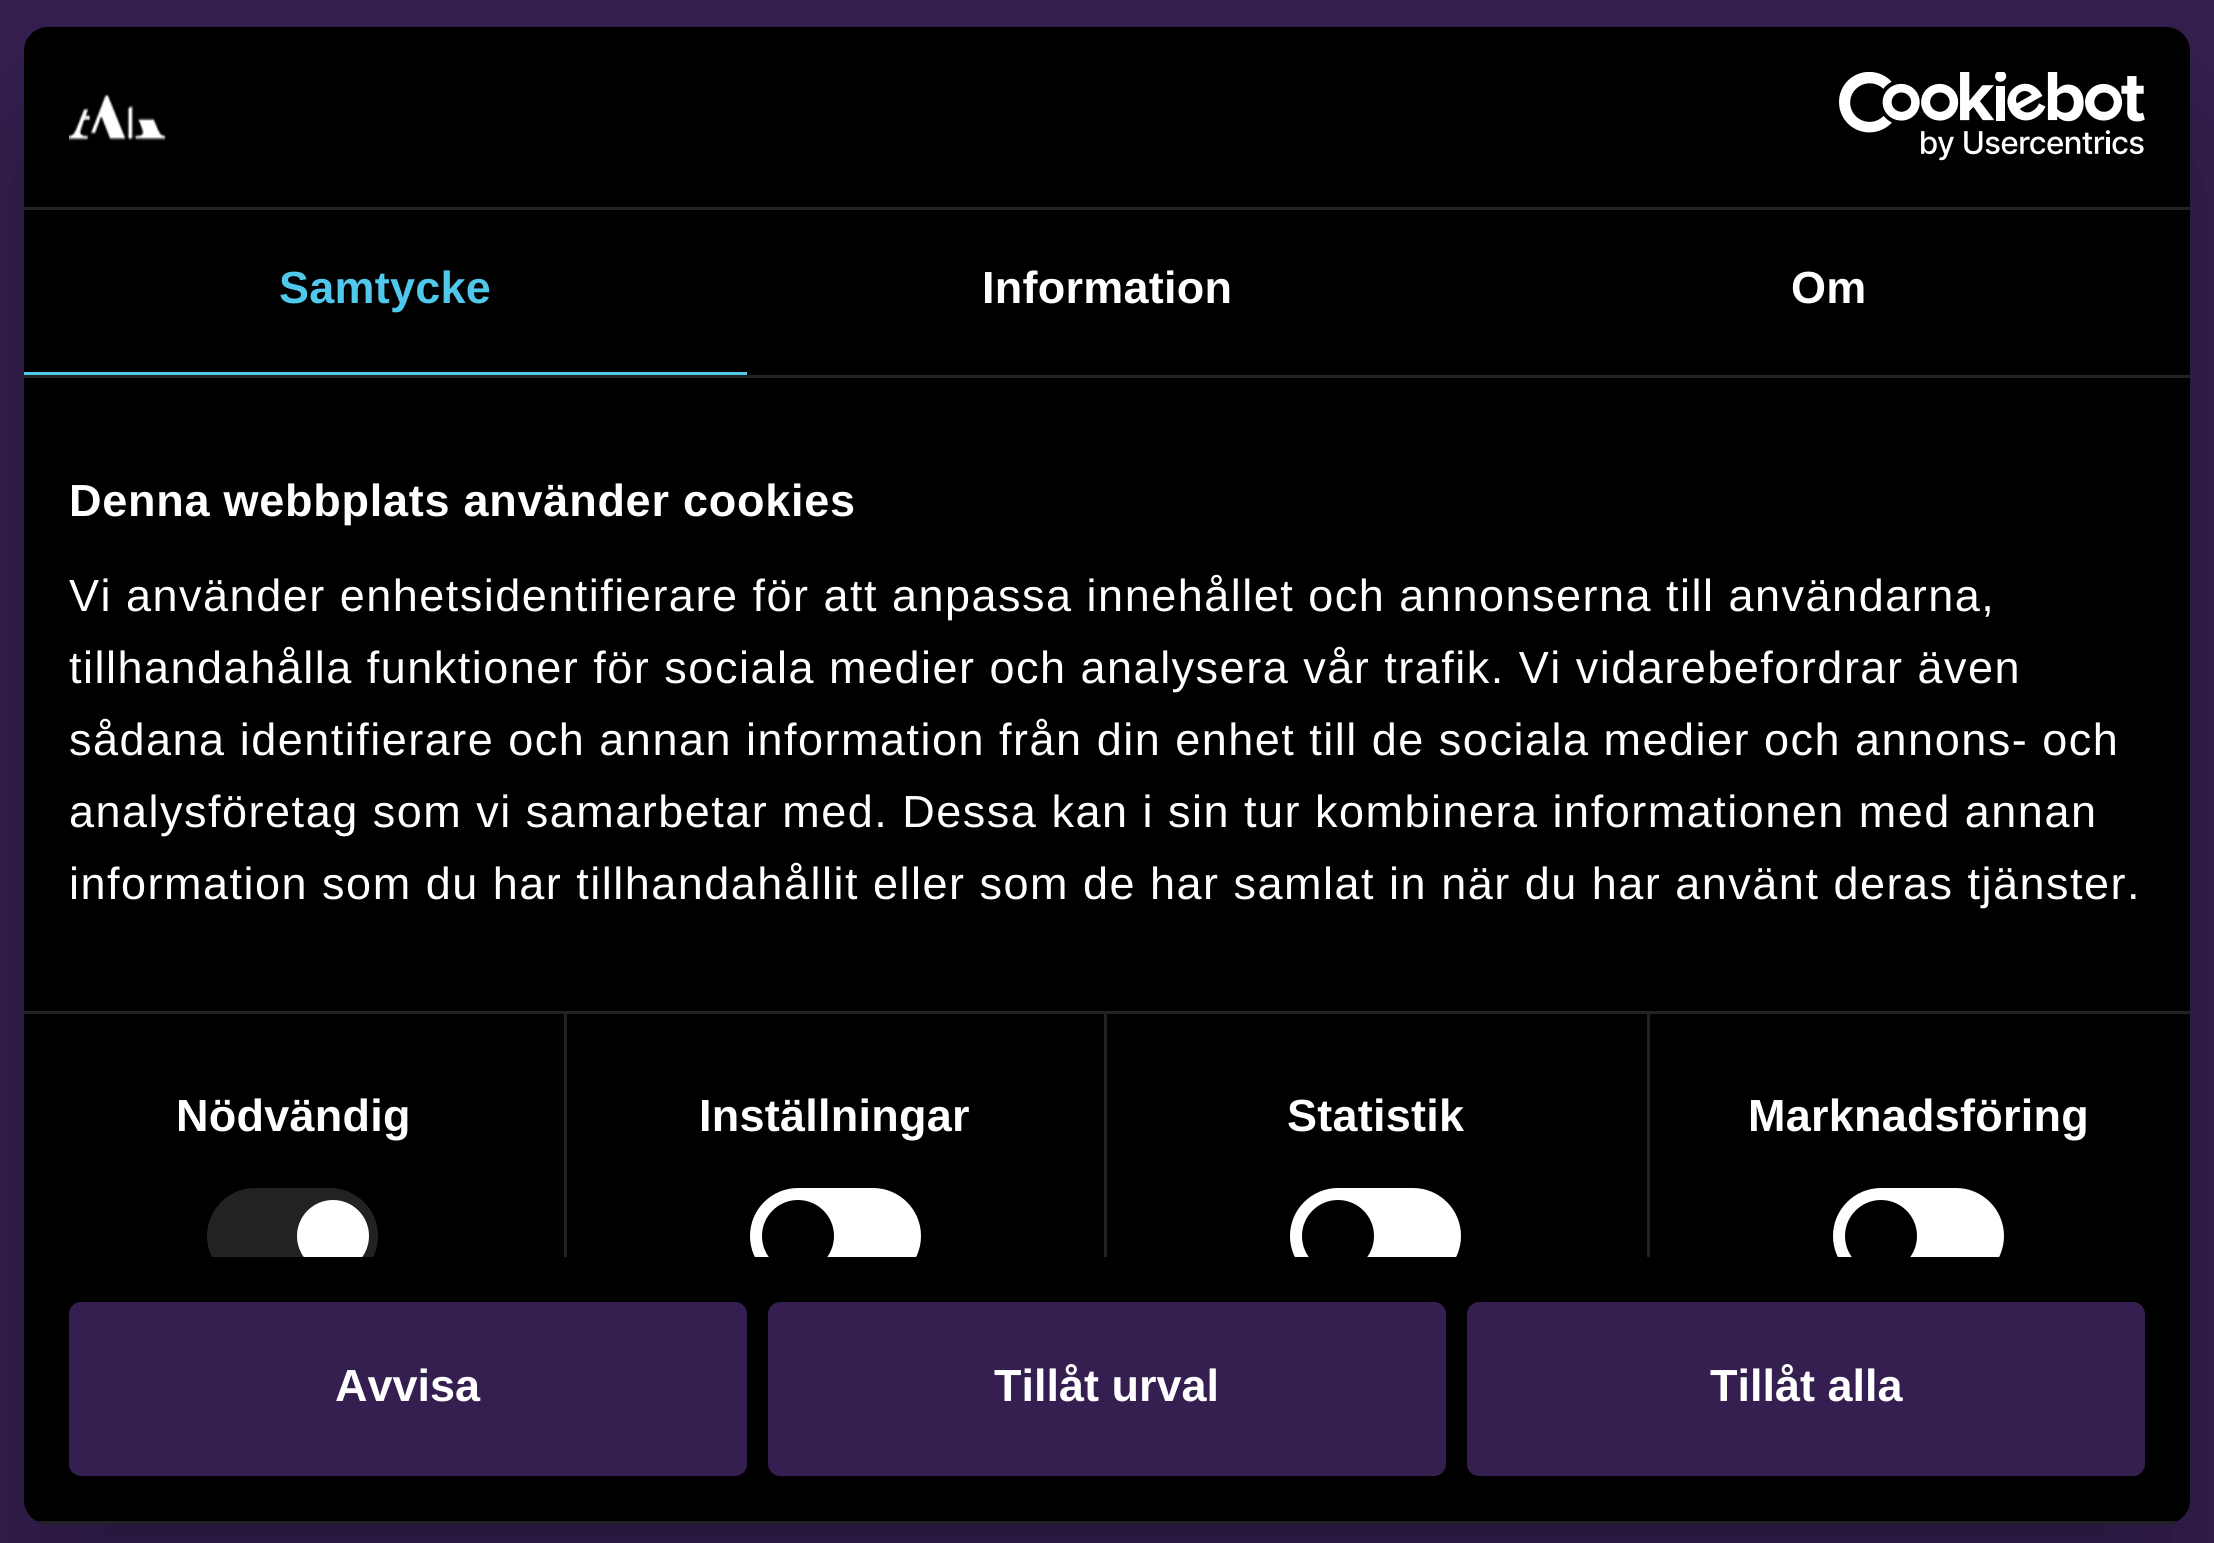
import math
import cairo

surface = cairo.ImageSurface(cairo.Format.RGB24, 2214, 1543)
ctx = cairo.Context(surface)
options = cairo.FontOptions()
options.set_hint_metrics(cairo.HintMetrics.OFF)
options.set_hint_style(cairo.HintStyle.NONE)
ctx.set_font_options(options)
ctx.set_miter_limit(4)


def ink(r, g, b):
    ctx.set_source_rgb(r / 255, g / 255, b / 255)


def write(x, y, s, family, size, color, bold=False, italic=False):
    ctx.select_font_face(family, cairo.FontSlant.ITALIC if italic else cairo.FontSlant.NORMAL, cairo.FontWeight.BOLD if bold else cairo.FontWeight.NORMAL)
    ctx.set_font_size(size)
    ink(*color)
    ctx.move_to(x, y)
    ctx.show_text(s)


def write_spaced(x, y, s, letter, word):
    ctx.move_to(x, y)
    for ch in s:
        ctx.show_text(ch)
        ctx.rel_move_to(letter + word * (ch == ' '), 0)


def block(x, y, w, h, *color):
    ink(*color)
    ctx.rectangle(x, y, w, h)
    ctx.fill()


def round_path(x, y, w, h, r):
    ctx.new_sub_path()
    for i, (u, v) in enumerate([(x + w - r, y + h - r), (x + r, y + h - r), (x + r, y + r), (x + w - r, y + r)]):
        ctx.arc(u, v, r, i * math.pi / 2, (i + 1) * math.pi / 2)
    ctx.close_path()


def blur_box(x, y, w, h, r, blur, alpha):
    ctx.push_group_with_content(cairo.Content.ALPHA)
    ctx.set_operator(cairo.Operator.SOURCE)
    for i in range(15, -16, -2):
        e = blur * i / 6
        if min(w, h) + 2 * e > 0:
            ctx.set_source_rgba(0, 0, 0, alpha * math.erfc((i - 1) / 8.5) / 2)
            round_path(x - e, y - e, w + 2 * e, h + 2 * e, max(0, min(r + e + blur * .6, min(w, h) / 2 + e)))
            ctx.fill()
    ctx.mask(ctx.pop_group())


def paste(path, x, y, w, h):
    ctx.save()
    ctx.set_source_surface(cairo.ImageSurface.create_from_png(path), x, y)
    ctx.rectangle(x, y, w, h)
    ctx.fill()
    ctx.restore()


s1 = dict(family="Liberation Sans", size=45, color=(255, 255, 255), bold=True)

ink(53, 31, 81)
ctx.paint()
ink(0, 0, 0)
blur_box(24, 123, 2166, 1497, 24, 102, 0.3)
ink(0, 0, 0)
round_path(24, 27, 2166, 1497, 24)
ctx.fill()
block(24, 207, 2166, 3, 34, 34, 34)
paste("pic1.png", 69, 94, 97, 47)
paste("pic2.png", 1839, 72, 306, 89)
block(24, 375, 2166, 3, 34, 34, 34)
block(24, 372, 723, 3, 80, 200, 235)
ctx.select_font_face("Liberation Sans", cairo.FontSlant.NORMAL, cairo.FontWeight.BOLD)
ctx.set_font_size(45)
write_spaced(279, 303, "Samtycke", 0.25, 0)
ink(255, 255, 255)
write_spaced(982, 303, "Information", 0.25, 0)
write_spaced(1791, 303, "Om", 0.25, 0)
block(24, 1011, 2166, 3, 34, 34, 34)
ink(255, 255, 255)
write_spaced(69, 516, "Denna webbplats använder cookies", 0.75, 0)
ctx.select_font_face("Liberation Sans")
write_spaced(69, 611, "Vi använder enhetsidentifierare för att anpassa innehållet och annonserna till användarna,", 1.5, 0)
write_spaced(69, 683, "tillhandahålla funktioner för sociala medier och analysera vår trafik. Vi vidarebefordrar även", 1.5, 0)
write_spaced(69, 755, "sådana identifierare och annan information från din enhet till de sociala medier och annons- och", 1.5, 0)
write_spaced(69, 827, "analysföretag som vi samarbetar med. Dessa kan i sin tur kombinera informationen med annan", 1.5, 0)
write_spaced(69, 899, "information som du har tillhandahållit eller som de har samlat in när du har använt deras tjänster.", 1.5, 0)
block(564, 1014, 3, 243, 34, 34, 34)
ctx.select_font_face("Liberation Sans", cairo.FontSlant.NORMAL, cairo.FontWeight.BOLD)
ink(255, 255, 255)
write_spaced(176, 1131, "Nödvändig", 0.25, 0)
ctx.save()
ctx.rectangle(24, 378, 2166, 879)
ctx.clip()
ink(34, 34, 34)
round_path(207, 1188, 171, 96, 48)
ctx.fill()
ink(255, 255, 255)
ctx.arc(333, 1236, 36, 0, 2 * math.pi)
ctx.fill()
ctx.restore()
block(1104, 1014, 3, 243, 34, 34, 34)
ink(255, 255, 255)
write_spaced(699, 1131, "Inställningar", 0.25, 0)
ctx.save()
ctx.rectangle(24, 378, 2166, 879)
ctx.clip()
round_path(750, 1188, 171, 96, 48)
ctx.fill()
ink(0, 0, 0)
ctx.arc(798, 1236, 36, 0, 2 * math.pi)
ctx.fill()
ctx.restore()
block(1647, 1014, 3, 243, 34, 34, 34)
ink(255, 255, 255)
write_spaced(1287, 1131, "Statistik", 0.25, 0)
ctx.save()
ctx.rectangle(24, 378, 2166, 879)
ctx.clip()
round_path(1290, 1188, 171, 96, 48)
ctx.fill()
ink(0, 0, 0)
ctx.arc(1338, 1236, 36, 0, 2 * math.pi)
ctx.fill()
ctx.restore()
write_spaced(1748, 1131, "Marknadsföring", 0.25, 0)
ctx.save()
ctx.rectangle(24, 378, 2166, 879)
ctx.clip()
round_path(1833, 1188, 171, 96, 48)
ctx.fill()
ink(0, 0, 0)
ctx.arc(1881, 1236, 36, 0, 2 * math.pi)
ctx.fill()
ctx.restore()
ctx.save()
round_path(24, 27, 2166, 1497, 24)
ctx.clip()
block(36, 1521, 2142, 3, 34, 34, 34)
ctx.restore()
ink(53, 31, 81)
round_path(72, 1305, 672, 168, 9)
ctx.fill_preserve()
ctx.set_line_width(6)
ctx.stroke()
write(335, 1401, "Avvisa", **s1)
ink(53, 31, 81)
round_path(771, 1305, 672, 168, 9)
ctx.fill_preserve()
ctx.stroke()
write(994, 1401, "Tillåt urval", **s1)
ink(53, 31, 81)
round_path(1470, 1305, 672, 168, 9)
ctx.fill_preserve()
ctx.stroke()
write(1710, 1401, "Tillåt alla", **s1)
surface.write_to_png("screenshot.png")
